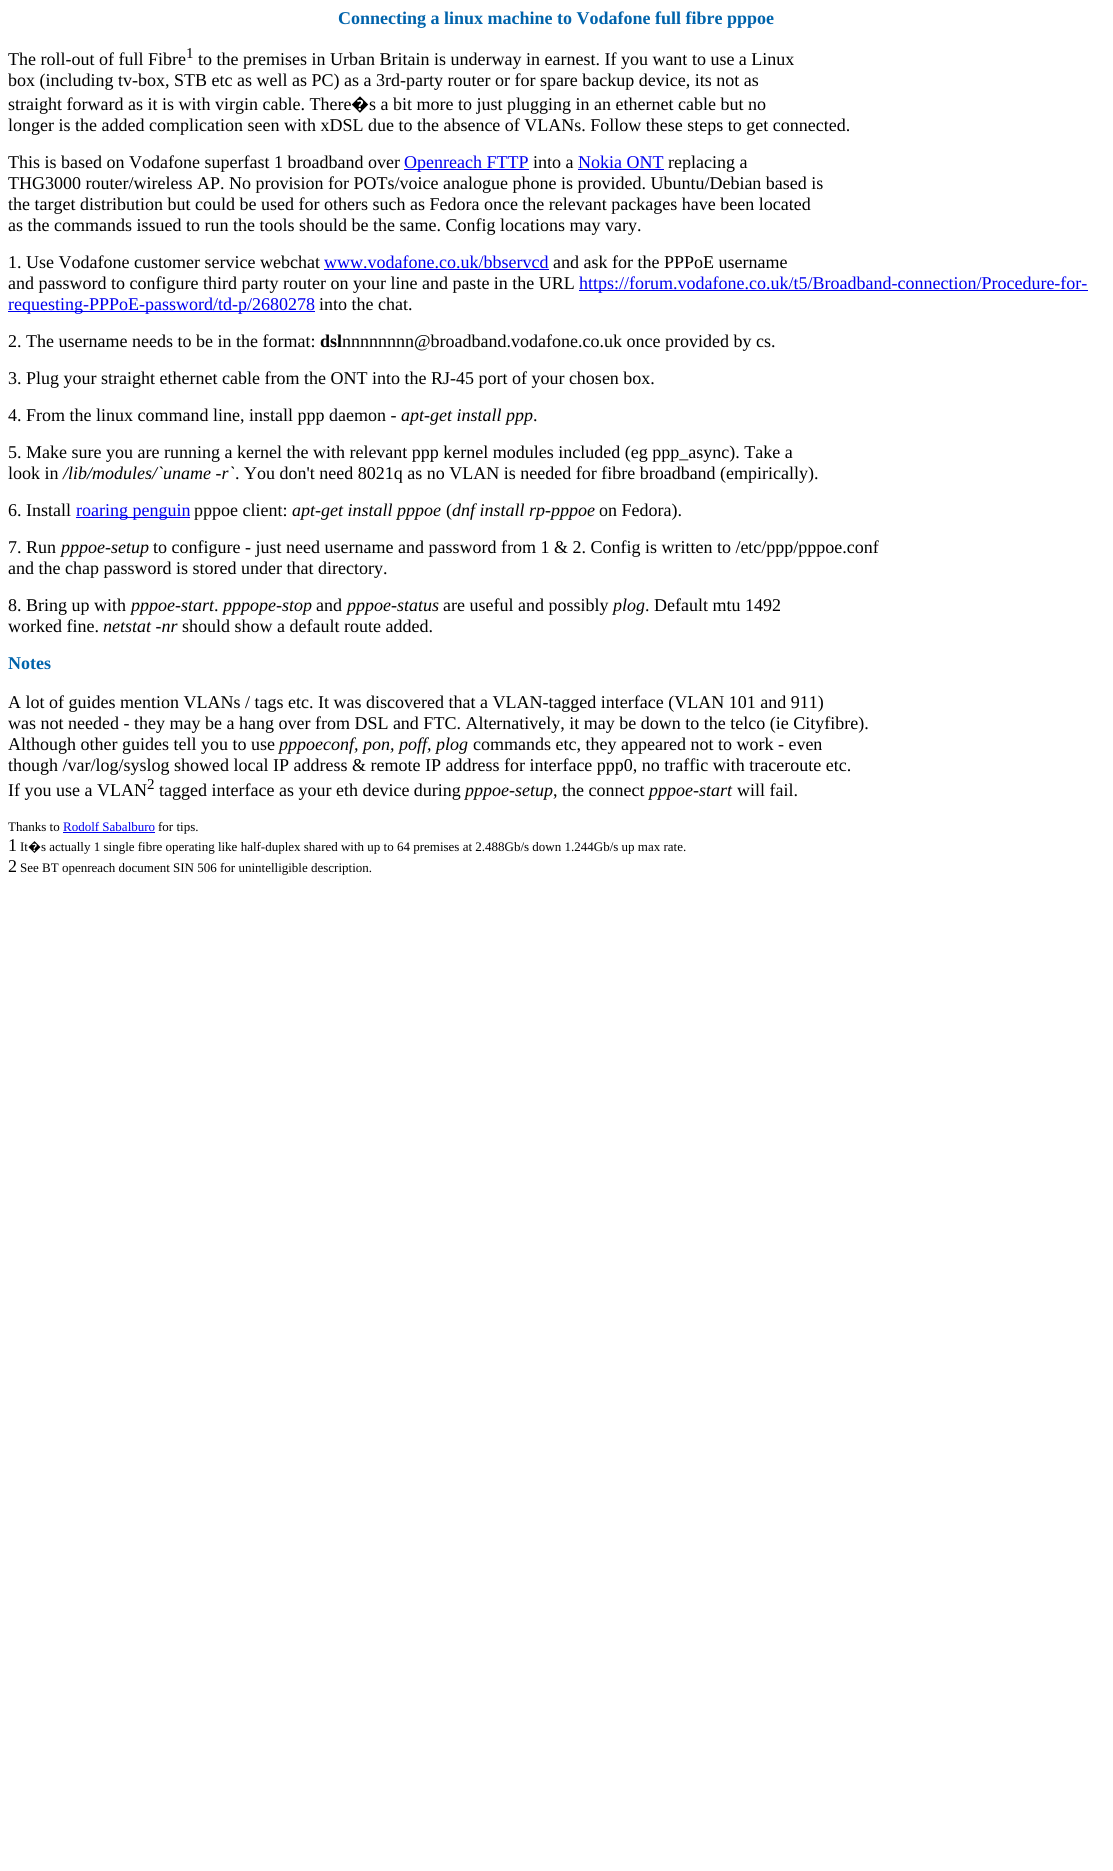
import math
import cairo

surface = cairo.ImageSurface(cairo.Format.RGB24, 1113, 1871)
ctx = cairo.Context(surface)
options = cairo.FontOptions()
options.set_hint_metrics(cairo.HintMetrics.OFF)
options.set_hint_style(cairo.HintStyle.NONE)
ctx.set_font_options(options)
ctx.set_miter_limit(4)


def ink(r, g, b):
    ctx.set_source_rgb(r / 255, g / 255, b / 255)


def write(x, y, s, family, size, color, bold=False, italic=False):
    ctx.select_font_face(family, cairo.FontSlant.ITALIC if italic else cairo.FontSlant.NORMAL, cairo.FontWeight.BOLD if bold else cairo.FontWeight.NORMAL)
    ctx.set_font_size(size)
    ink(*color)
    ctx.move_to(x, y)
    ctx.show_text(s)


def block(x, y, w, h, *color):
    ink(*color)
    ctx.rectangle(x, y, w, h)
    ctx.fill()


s1 = dict(family="Liberation Serif", size=18, color=(0, 99, 171), bold=True)
s2 = dict(family="Liberation Serif", size=18, color=(0, 0, 0))
s3 = dict(family="Liberation Serif", size=15, color=(0, 0, 0))
s4 = dict(family="Noto Sans", size=18, color=(0, 0, 0))
s5 = dict(family="Liberation Serif", size=18, color=(0, 0, 238))
s6 = dict(family="Liberation Serif", size=18, color=(0, 0, 0), bold=True)
s7 = dict(family="Liberation Serif", size=18, color=(0, 0, 0), italic=True)
s8 = dict(family="Liberation Serif", size=13, color=(0, 0, 0))
s9 = dict(family="Liberation Serif", size=13, color=(0, 0, 238))
s10 = dict(family="Noto Sans", size=13, color=(0, 0, 0))

ink(255, 255, 255)
ctx.paint()
write(338, 24, "Connecting a linux machine to Vodafone full fibre pppoe", **s1)
write(8, 65, "The roll-out of full Fibre", **s2)
write(186, 58, "1", **s3)
write(198, 65, "to the premises in Urban Britain is underway in earnest. If you want to use a Linux", **s2)
write(8, 86, "box (including tv-box, STB etc as well as PC) as a 3rd-party router or for spare backup device, its not as", **s2)
write(8, 110, "straight forward as it is with virgin cable. There", **s2)
write(351, 110, "�", **s4)
write(369, 110, "s a bit more to just plugging in an ethernet cable but no", **s2)
write(8, 131, "longer is the added complication seen with xDSL due to the absence of VLANs. Follow these steps to get connected.", **s2)
write(8, 168, "This is based on Vodafone superfast 1 broadband over", **s2)
block(404, 169, 125, 1, 0, 0, 238)
write(404, 168, "Openreach FTTP", **s5)
write(533, 168, "into a", **s2)
write(578, 168, "Nokia ONT", **s5)
block(578, 169, 86, 1, 0, 0, 238)
write(668, 168, "replacing a", **s2)
write(8, 189, "THG3000 router/wireless AP. No provision for POTs/voice analogue phone is provided. Ubuntu/Debian based is", **s2)
write(8, 210, "the target distribution but could be used for others such as Fedora once the relevant packages have been located", **s2)
write(8, 231, "as the commands issued to run the tools should be the same. Config locations may vary.", **s2)
write(8, 268, "1. Use Vodafone customer service webchat", **s2)
write(324, 268, "www.vodafone.co.uk/bbservcd", **s5)
block(324, 269, 225, 1, 0, 0, 238)
write(553, 268, "and ask for the PPPoE username", **s2)
write(8, 289, "and password to configure third party router on your line and paste in the URL", **s2)
block(579, 290, 509, 1, 0, 0, 238)
write(579, 289, "https://forum.vodafone.co.uk/t5/Broadband-connection/Procedure-for-", **s5)
block(8, 311, 307, 1, 0, 0, 238)
write(8, 310, "requesting-PPPoE-password/td-p/2680278", **s5)
write(319, 310, "into the chat.", **s2)
write(8, 347, "2. The username needs to be in the format:", **s2)
write(320, 347, "dsl", **s6)
write(342, 347, "nnnnnnnn@broadband.vodafone.co.uk once provided by cs.", **s2)
write(8, 384, "3. Plug your straight ethernet cable from the ONT into the RJ-45 port of your chosen box.", **s2)
write(8, 421, "4. From the linux command line, install ppp daemon -", **s2)
write(401, 421, "apt-get install ppp", **s7)
write(533, 421, ".", **s2)
write(8, 458, "5. Make sure you are running a kernel the with relevant ppp kernel modules included (eg ppp_async). Take a", **s2)
write(8, 479, "look in", **s2)
write(63, 479, "/lib/modules/`uname -r`", **s7)
write(235, 479, ". You don't need 8021q as no VLAN is needed for fibre broadband (empirically).", **s2)
write(8, 516, "6. Install", **s2)
block(76, 517, 114, 1, 0, 0, 238)
write(76, 516, "roaring penguin", **s5)
write(194, 516, "pppoe client:", **s2)
write(292, 516, "apt-get install pppoe", **s7)
write(446, 516, "(", **s2)
write(452, 516, "dnf install rp-pppoe", **s7)
write(599, 516, "on Fedora).", **s2)
write(8, 553, "7. Run", **s2)
write(61, 553, "pppoe-setup", **s7)
write(153, 553, "to configure - just need username and password from 1 & 2. Config is written to /etc/ppp/pppoe.conf", **s2)
write(8, 574, "and the chap password is stored under that directory.", **s2)
write(8, 611, "8. Bring up with", **s2)
write(131, 611, "pppoe-start", **s7)
write(214, 611, ".", **s2)
write(223, 611, "pppope-stop", **s7)
write(316, 611, "and", **s2)
write(347, 611, "pppoe-status", **s7)
write(443, 611, "are useful and possibly", **s2)
write(613, 611, "plog", **s7)
write(645, 611, ". Default mtu 1492", **s2)
write(8, 632, "worked fine.", **s2)
write(103, 632, "netstat -nr", **s7)
write(182, 632, "should show a default route added.", **s2)
write(8, 669, "Notes", **s1)
write(8, 708, "A lot of guides mention VLANs / tags etc. It was discovered that a VLAN-tagged interface (VLAN 101 and 911)", **s2)
write(8, 729, "was not needed - they may be a hang over from DSL and FTC. Alternatively, it may be down to the telco (ie Cityfibre).", **s2)
write(8, 750, "Although other guides tell you to use", **s2)
write(279, 750, "pppoeconf, pon, poff, plog", **s7)
write(473, 750, "commands etc, they appeared not to work - even", **s2)
write(8, 771, "though /var/log/syslog showed local IP address & remote IP address for interface ppp0, no traffic with traceroute etc.", **s2)
write(8, 796, "If you use a VLAN", **s2)
write(147, 789, "2", **s3)
write(159, 796, "tagged interface as your eth device during", **s2)
write(465, 796, "pppoe-setup", **s7)
write(553, 796, ", the connect", **s2)
write(649, 796, "pppoe-start", **s7)
write(737, 796, "will fail.", **s2)
write(8, 831, "Thanks to", **s8)
write(63, 831, "Rodolf Sabalburo", **s9)
block(63, 832, 92, 1, 0, 0, 238)
write(158, 831, "for tips.", **s8)
write(8, 851, "1", **s2)
write(20, 851, "It", **s8)
write(28, 851, "�", **s10)
write(41, 851, "s actually 1 single fibre operating like half-duplex shared with up to 64 premises at 2.488Gb/s down 1.244Gb/s up max rate.", **s8)
write(8, 872, "2", **s2)
write(20, 872, "See BT openreach document SIN 506 for unintelligible description.", **s8)
surface.write_to_png("screenshot.png")
